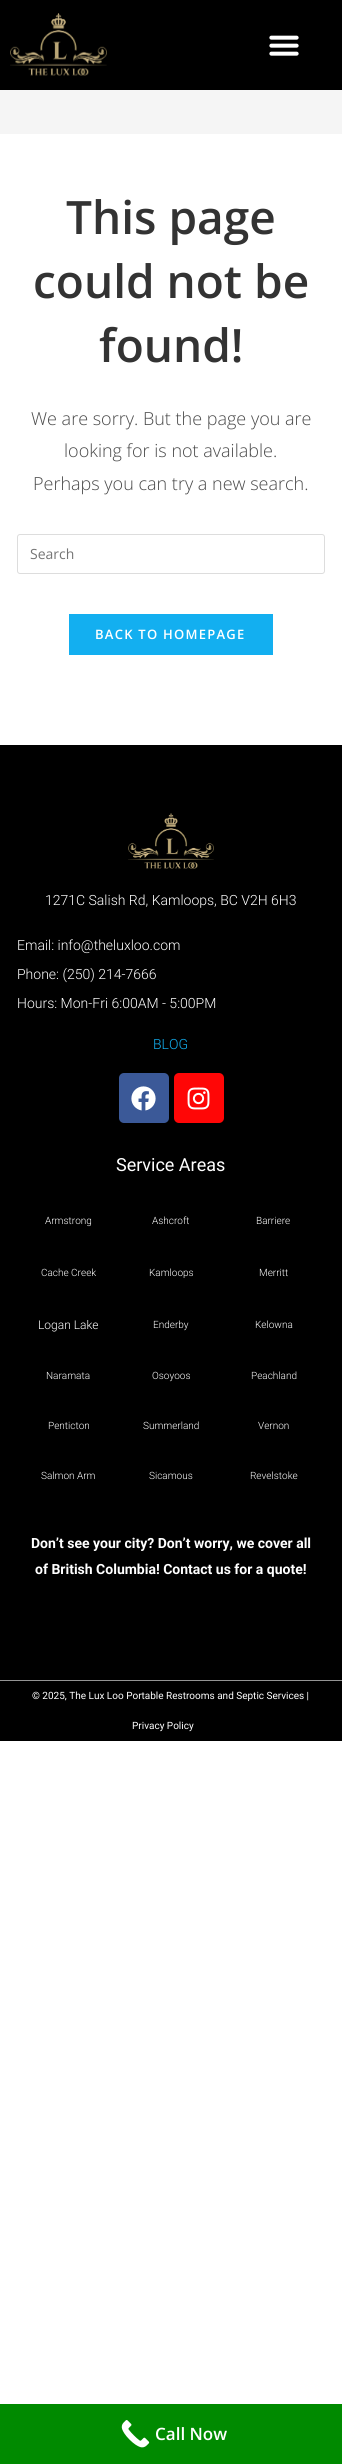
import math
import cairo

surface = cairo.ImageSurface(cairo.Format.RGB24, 342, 2464)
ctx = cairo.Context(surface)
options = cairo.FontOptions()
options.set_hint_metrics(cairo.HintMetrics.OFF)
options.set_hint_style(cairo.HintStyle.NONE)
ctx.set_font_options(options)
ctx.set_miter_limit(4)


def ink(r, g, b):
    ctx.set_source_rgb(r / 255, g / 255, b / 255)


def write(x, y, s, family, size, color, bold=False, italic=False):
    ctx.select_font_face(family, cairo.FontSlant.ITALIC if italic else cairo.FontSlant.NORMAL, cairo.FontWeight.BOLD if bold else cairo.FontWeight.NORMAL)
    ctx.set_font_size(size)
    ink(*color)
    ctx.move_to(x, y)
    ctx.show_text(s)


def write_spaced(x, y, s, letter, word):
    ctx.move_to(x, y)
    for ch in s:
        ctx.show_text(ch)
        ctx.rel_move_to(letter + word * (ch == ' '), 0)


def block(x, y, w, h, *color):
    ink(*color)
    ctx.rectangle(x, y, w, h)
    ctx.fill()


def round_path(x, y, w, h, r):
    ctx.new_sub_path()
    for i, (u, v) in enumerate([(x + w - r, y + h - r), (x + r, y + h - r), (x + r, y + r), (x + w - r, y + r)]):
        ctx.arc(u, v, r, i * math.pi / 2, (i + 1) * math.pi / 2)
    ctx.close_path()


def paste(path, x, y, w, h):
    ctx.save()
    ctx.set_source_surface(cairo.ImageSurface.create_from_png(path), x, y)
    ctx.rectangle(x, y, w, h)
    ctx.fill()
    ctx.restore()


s1 = dict(family="Open Sans SemiBold", size=46, color=(51, 51, 51))
s2 = dict(family="Open Sans Light", size=18, color=(74, 74, 74))
s3 = dict(family="Open Sans", size=14, color=(117, 117, 117))
s4 = dict(family="Roboto Light", size=14, color=(255, 255, 255))
s5 = dict(family="Roboto Light", size=14, color=(19, 175, 240))
s6 = dict(family="Roboto", size=18, color=(255, 255, 255))
s7 = dict(family="Roboto Light", size=10, color=(255, 255, 255))
s8 = dict(family="Roboto Light", size=12, color=(255, 255, 255))
s9 = dict(family="Roboto", size=14, color=(255, 255, 255), bold=True)
s10 = dict(family="Roboto", size=10, color=(255, 255, 255))
s11 = dict(family="Open Sans SemiBold", size=17, color=(255, 255, 255))

ink(255, 255, 255)
ctx.paint()
block(0, 0, 342, 90, 0, 0, 0)
paste("pic1.png", 10, 13, 97, 63)
paste("pic2.png", 269, 35, 30, 21)
block(0, 90, 342, 44, 245, 245, 245)
write(66, 234, "This page", **s1)
write(33, 298, "could not be", **s1)
write(99, 362, "found!", **s1)
write(31, 425, "We are sorry. But the page you are", **s2)
write(64, 457, "looking for is not available.", **s2)
write(33, 490, "Perhaps you can try a new search.", **s2)
round_path(17.5, 534.5, 307, 39, 2.5)
ink(221, 221, 221)
ctx.set_line_width(1)
ctx.stroke()
write(30, 559, "Search", **s3)
block(69, 614, 204, 41, 19, 175, 240)
ctx.select_font_face("Open Sans SemiBold")
ctx.set_font_size(13)
ink(255, 255, 255)
write_spaced(95, 639, "BACK TO HOMEPAGE", 1.25, 0)
block(0, 745, 342, 935, 0, 0, 0)
paste("pic3.png", 128, 813, 86, 56)
write(45, 905, "1271C Salish Rd, Kamloops, BC V2H 6H3", **s4)
write(17, 950, "Email: info@theluxloo.com", **s4)
write(17, 979, "Phone: (250) 214-7666", **s4)
write(17, 1008, "Hours: Mon-Fri 6:00AM - 5:00PM", **s4)
write(153, 1049, "BLOG", **s5)
ink(59, 89, 152)
round_path(119, 1073, 50, 50, 5)
ctx.fill()
paste("pic4.png", 131, 1086, 25, 25)
ink(255, 6, 6)
round_path(174, 1073, 50, 50, 5)
ctx.fill()
paste("pic5.png", 187, 1087, 23, 23)
write(116, 1171, "Service Areas", **s6)
write(45, 1224, "Armstrong", **s7)
write(152, 1224, "Ashcroft", **s7)
write(256, 1224, "Barriere", **s7)
write(41, 1276, "Cache Creek", **s7)
write(149, 1276, "Kamloops", **s7)
write(259, 1276, "Merritt", **s7)
write(38, 1329, "Logan Lake", **s8)
write(153, 1328, "Enderby", **s7)
write(255, 1328, "Kelowna", **s7)
write(46, 1379, "Naramata", **s7)
write(152, 1379, "Osoyoos", **s7)
write(251, 1379, "Peachland", **s7)
write(48, 1429, "Penticton", **s7)
write(143, 1429, "Summerland", **s7)
write(258, 1429, "Vernon", **s7)
write(41, 1479, "Salmon Arm", **s7)
write(149, 1479, "Sicamous", **s7)
write(250, 1479, "Revelstoke", **s7)
write(31, 1548, "Don’t see your city? Don’t worry, we cover all", **s9)
write(35, 1574, "of British Columbia! Contact us for a quote!", **s9)
block(0, 1681, 342, 60, 0, 0, 0)
block(0, 1680, 342, 1, 148, 148, 148)
write(32, 1699, "© 2025, The Lux Loo Portable Restrooms and Septic Services |", **s10)
write(132, 1729, "Privacy Policy", **s10)
block(0, 2404, 342, 60, 0, 138, 0)
paste("pic6.png", 121, 2420, 29, 28)
write(155, 2440, "Call Now", **s11)
surface.write_to_png("screenshot.png")
